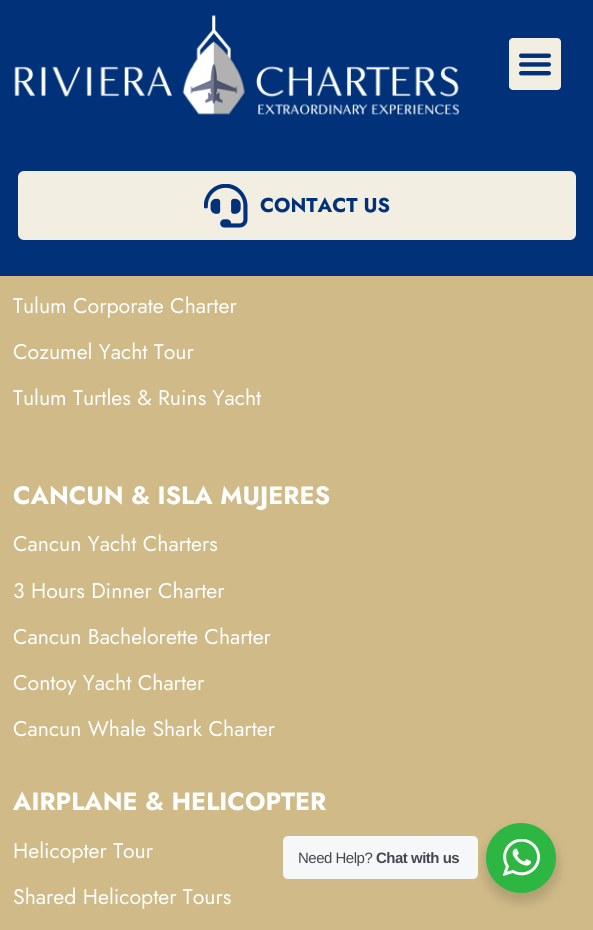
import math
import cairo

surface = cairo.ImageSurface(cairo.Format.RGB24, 593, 930)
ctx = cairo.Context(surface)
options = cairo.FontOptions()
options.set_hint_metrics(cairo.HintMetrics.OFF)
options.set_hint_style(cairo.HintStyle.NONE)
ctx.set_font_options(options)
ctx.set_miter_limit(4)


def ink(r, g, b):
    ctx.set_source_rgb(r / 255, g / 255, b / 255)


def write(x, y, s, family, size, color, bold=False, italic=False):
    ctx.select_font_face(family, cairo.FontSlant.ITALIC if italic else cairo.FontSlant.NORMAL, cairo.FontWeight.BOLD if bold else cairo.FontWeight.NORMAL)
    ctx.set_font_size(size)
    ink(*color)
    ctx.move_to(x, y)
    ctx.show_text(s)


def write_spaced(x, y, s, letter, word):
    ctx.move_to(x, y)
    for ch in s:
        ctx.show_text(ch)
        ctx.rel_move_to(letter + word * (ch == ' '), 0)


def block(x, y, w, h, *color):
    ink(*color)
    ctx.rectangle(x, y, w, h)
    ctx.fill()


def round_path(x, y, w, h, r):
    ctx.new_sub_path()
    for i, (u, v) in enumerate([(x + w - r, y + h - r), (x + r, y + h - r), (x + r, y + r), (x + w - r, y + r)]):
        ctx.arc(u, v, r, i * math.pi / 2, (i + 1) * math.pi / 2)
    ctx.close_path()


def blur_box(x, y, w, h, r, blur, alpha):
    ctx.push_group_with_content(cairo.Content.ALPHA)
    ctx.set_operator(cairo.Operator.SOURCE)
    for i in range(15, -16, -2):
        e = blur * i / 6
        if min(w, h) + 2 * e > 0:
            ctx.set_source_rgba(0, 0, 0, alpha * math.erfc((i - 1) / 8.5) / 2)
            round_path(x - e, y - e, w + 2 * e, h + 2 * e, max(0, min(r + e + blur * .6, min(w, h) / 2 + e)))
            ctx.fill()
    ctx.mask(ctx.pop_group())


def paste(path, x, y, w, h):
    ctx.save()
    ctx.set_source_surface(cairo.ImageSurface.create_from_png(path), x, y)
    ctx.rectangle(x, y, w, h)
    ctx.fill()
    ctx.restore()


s1 = dict(family="Jost", size=20, color=(0, 49, 121), bold=True)
s2 = dict(family="Jost", size=21.25, color=(255, 255, 255))
s3 = dict(family="Jost", size=25, color=(255, 255, 255), bold=True)

ink(207, 186, 136)
ctx.paint()
block(0, 0, 593, 276, 0, 49, 121)
paste("pic1.png", 14, 15, 446, 101)
ink(243, 238, 226)
round_path(509, 38, 52, 52, 4)
ctx.fill()
paste("pic2.png", 519, 53, 32, 23)
round_path(18, 171, 558, 69, 6)
ctx.fill()
paste("pic3.png", 204, 184, 44, 44)
write(260, 212, "CONTACT US", **s1)
write(13, 313, "Tulum Corporate Charter", **s2)
write(13, 359, "Cozumel Yacht Tour", **s2)
write(13, 405, "Tulum Turtles & Ruins Yacht", **s2)
write(13, 504, "CANCUN & ISLA MUJERES", **s3)
write(13, 551, "Cancun Yacht Charters", **s2)
write(13, 598, "3 Hours Dinner Charter", **s2)
write(13, 644, "Cancun Bachelorette Charter", **s2)
write(13, 690, "Contoy Yacht Charter", **s2)
write(13, 736, "Cancun Whale Shark Charter", **s2)
write(13, 810, "AIRPLANE & HELICOPTER", **s3)
write(13, 858, "Helicopter Tour", **s2)
write(13, 904, "Shared Helicopter Tours", **s2)
ink(0, 0, 0)
blur_box(484, 828, 75, 75, 37.5, 5, 0.14)
ink(245, 247, 249)
round_path(283, 836, 195, 43, 5)
ctx.fill()
ctx.select_font_face("Liberation Sans")
ctx.set_font_size(15)
ink(67, 71, 78)
write_spaced(298, 863, "Need Help?", -0.5, 0)
ctx.select_font_face("Liberation Sans", cairo.FontSlant.NORMAL, cairo.FontWeight.BOLD)
write_spaced(376, 863, "Chat with us", -0.5, 0)
ink(45, 183, 66)
ctx.new_path()
ctx.arc(521, 858, 35, 0, 2 * math.pi)
ctx.fill()
paste("pic4.png", 503, 839, 37, 37)
surface.write_to_png("screenshot.png")
